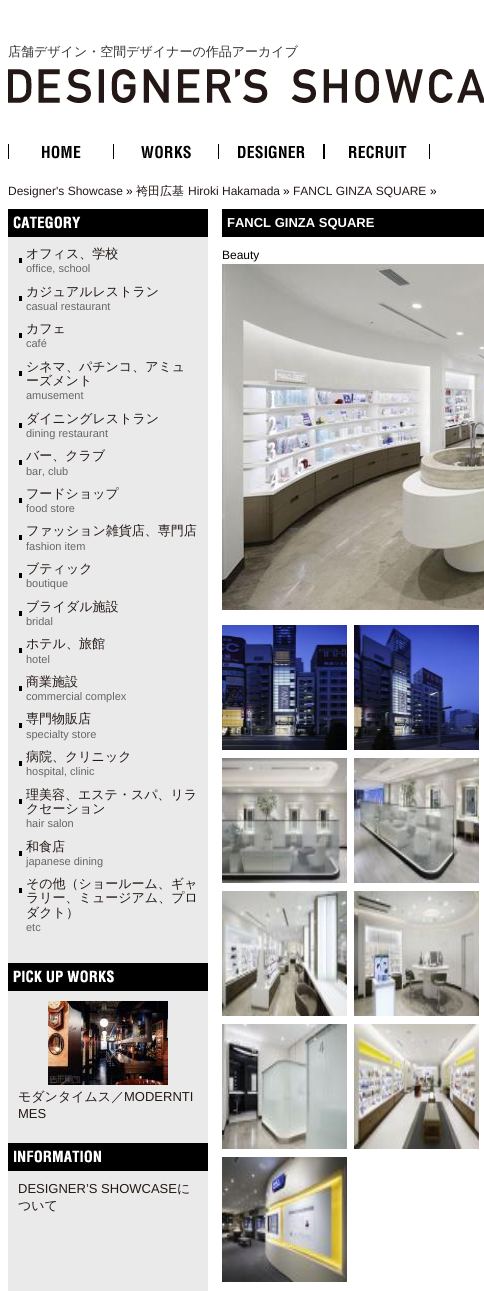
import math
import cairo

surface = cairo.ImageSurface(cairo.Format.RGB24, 484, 1291)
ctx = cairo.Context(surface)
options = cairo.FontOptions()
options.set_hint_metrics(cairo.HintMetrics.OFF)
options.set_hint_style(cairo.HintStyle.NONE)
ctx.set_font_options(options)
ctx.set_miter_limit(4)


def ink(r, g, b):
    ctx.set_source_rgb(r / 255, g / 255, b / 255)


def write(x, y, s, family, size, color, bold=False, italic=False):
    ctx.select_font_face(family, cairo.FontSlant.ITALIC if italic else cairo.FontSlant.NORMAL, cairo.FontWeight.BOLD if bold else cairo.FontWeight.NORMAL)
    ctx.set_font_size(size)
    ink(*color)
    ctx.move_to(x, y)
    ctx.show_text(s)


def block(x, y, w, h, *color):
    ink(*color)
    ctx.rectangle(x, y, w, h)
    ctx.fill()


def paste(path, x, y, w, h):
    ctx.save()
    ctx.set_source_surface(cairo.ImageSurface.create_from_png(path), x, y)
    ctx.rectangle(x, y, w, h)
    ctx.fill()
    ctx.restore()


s1 = dict(family="WenQuanYi Zen Hei Medium", size=13, color=(51, 51, 51))
s2 = dict(family="Liberation Sans", size=12, color=(35, 24, 21))
s3 = dict(family="Liberation Sans", size=12, color=(0, 0, 0))
s4 = dict(family="WenQuanYi Zen Hei Medium", size=12, color=(35, 24, 21))
s5 = dict(family="Liberation Sans", size=13, color=(255, 255, 255), bold=True)
s6 = dict(family="WenQuanYi Zen Hei Medium", size=13, color=(35, 24, 21))
s7 = dict(family="Liberation Sans", size=11, color=(102, 102, 102))
s8 = dict(family="Liberation Sans", size=13, color=(35, 24, 21))

ink(255, 255, 255)
ctx.paint()
write(8, 56, "店舗デザイン・空間デザイナーの作品アーカイブ", **s1)
paste("pic1.png", 8, 69, 476, 34)
paste("pic2.png", 8, 144, 73, 15)
paste("pic3.png", 113, 144, 78, 15)
paste("pic4.png", 218, 144, 106, 15)
paste("pic5.png", 324, 144, 106, 15)
write(8, 195, "Designer's Showcase", **s2)
write(126, 195, "»", **s3)
write(136, 195, "袴田広基", **s4)
write(188, 195, "Hiroki Hakamada", **s2)
write(283, 195, "»", **s3)
write(293, 195, "FANCL GINZA SQUARE", **s2)
write(430, 195, "»", **s3)
block(8, 237, 200, 1054, 234, 234, 234)
block(222, 209, 262, 28, 0, 0, 0)
write(227, 227, "FANCL GINZA SQUARE", **s5)
write(222, 259, "Beauty", **s3)
paste("pic6.png", 222, 264, 262, 346)
paste("pic7.png", 222, 625, 125, 125)
paste("pic8.png", 354, 625, 125, 125)
paste("pic9.png", 222, 758, 125, 125)
paste("pic10.png", 354, 758, 125, 125)
paste("pic11.png", 222, 891, 125, 125)
paste("pic12.png", 354, 891, 125, 125)
paste("pic13.png", 222, 1024, 125, 125)
paste("pic14.png", 354, 1024, 125, 125)
paste("pic15.png", 222, 1157, 125, 125)
paste("pic16.png", 8, 209, 200, 28)
block(19, 258, 3, 5, 0, 0, 0)
write(26, 258, "オフィス、学校", **s6)
write(26, 272, "office, school", **s7)
block(19, 296, 3, 5, 0, 0, 0)
write(26, 296, "カジュアルレストラン", **s6)
write(26, 310, "casual restaurant", **s7)
block(19, 333, 3, 5, 0, 0, 0)
write(26, 333, "カフェ", **s6)
write(26, 347, "café", **s7)
block(19, 371, 3, 5, 0, 0, 0)
write(26, 371, "シネマ、パチンコ、アミュ", **s6)
write(26, 385, "ーズメント", **s6)
write(26, 399, "amusement", **s7)
block(19, 423, 3, 5, 0, 0, 0)
write(26, 423, "ダイニングレストラン", **s6)
write(26, 437, "dining restaurant", **s7)
block(19, 460, 3, 5, 0, 0, 0)
write(26, 460, "バー、クラブ", **s6)
write(26, 475, "bar, club", **s7)
block(19, 498, 3, 5, 0, 0, 0)
write(26, 498, "フードショップ", **s6)
write(26, 512, "food store", **s7)
block(19, 535, 3, 5, 0, 0, 0)
write(26, 535, "ファッション雑貨店、専門店", **s6)
write(26, 550, "fashion item", **s7)
block(19, 573, 3, 5, 0, 0, 0)
write(26, 573, "ブティック", **s6)
write(26, 587, "boutique", **s7)
block(19, 611, 3, 5, 0, 0, 0)
write(26, 611, "ブライダル施設", **s6)
write(26, 625, "bridal", **s7)
block(19, 648, 3, 5, 0, 0, 0)
write(26, 648, "ホテル、旅館", **s6)
write(26, 663, "hotel", **s7)
block(19, 686, 3, 5, 0, 0, 0)
write(26, 686, "商業施設", **s6)
write(26, 700, "commercial complex", **s7)
block(19, 723, 3, 5, 0, 0, 0)
write(26, 723, "専門物販店", **s6)
write(26, 738, "specialty store", **s7)
block(19, 761, 3, 5, 0, 0, 0)
write(26, 761, "病院、クリニック", **s6)
write(26, 775, "hospital, clinic", **s7)
block(19, 799, 3, 5, 0, 0, 0)
write(26, 799, "理美容、エステ・スパ、リラ", **s6)
write(26, 813, "クセーション", **s6)
write(26, 827, "hair salon", **s7)
block(19, 851, 3, 5, 0, 0, 0)
write(26, 851, "和食店", **s6)
write(26, 865, "japanese dining", **s7)
block(19, 888, 3, 5, 0, 0, 0)
write(26, 888, "その他（ショールーム、ギャ", **s6)
write(26, 902, "ラリー、ミュージアム、プロ", **s6)
write(26, 917, "ダクト）", **s6)
write(26, 931, "etc", **s7)
paste("pic17.png", 8, 963, 200, 28)
paste("pic18.png", 48, 1001, 120, 84)
write(18, 1101, "モダンタイムス／", **s6)
write(124, 1101, "MODERNTI", **s8)
write(18, 1118, "MES", **s8)
paste("pic19.png", 8, 1143, 200, 28)
write(18, 1193, "DESIGNER’S SHOWCASE", **s8)
write(177, 1193, "に", **s6)
write(18, 1210, "ついて", **s6)
surface.write_to_png("screenshot.png")
